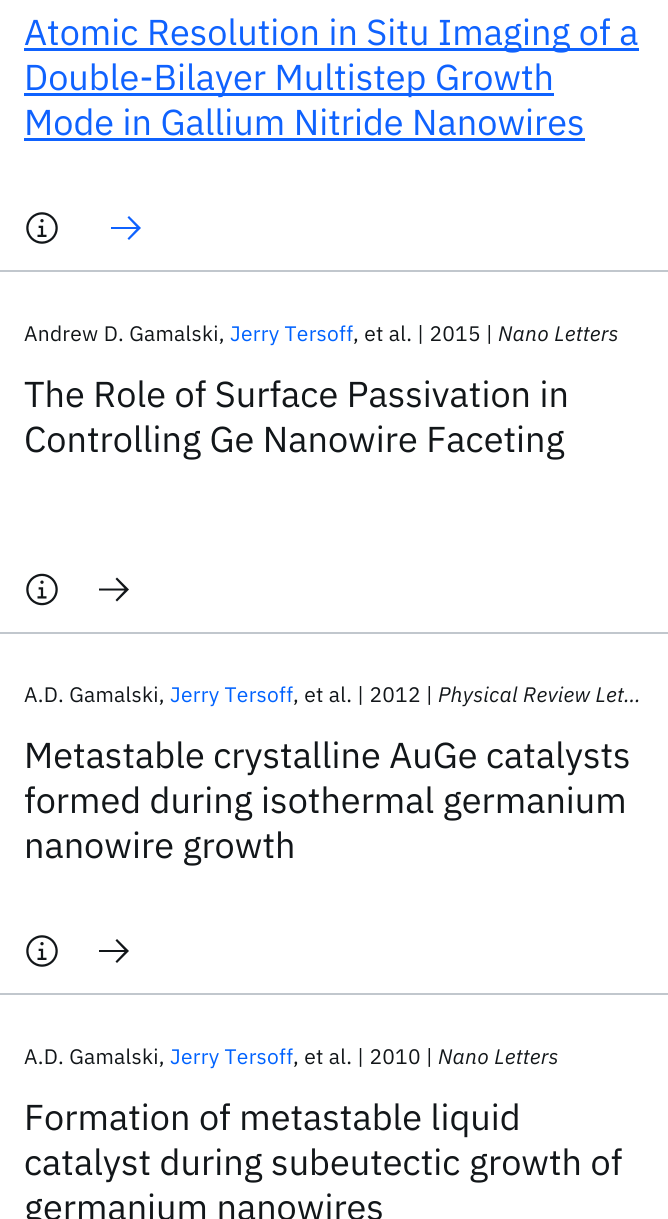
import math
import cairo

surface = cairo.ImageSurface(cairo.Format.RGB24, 668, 1219)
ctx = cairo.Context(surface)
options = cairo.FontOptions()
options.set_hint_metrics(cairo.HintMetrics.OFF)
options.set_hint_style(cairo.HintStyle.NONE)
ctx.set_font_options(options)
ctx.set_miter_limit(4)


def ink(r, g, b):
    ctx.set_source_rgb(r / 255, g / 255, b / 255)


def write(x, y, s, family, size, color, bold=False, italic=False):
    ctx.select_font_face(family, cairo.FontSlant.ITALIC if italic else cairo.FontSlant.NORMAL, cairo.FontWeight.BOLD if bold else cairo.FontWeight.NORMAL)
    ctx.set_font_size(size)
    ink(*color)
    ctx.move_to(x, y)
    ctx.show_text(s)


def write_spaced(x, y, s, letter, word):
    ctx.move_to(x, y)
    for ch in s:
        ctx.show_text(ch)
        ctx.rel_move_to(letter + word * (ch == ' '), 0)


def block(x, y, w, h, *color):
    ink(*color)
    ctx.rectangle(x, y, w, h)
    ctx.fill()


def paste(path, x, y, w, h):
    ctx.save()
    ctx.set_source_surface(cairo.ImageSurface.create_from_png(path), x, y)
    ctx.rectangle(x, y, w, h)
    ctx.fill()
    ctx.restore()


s1 = dict(family="IBM Plex Sans", size=36, color=(15, 98, 254))
s2 = dict(family="IBM Plex Sans", size=36, color=(18, 22, 25))

ink(255, 255, 255)
ctx.paint()
block(0, 270, 668, 2, 193, 199, 205)
block(24, 48, 615, 3, 15, 98, 254)
write(24, 45, "Atomic Resolution in Situ Imaging of a", **s1)
block(24, 93, 530, 3, 15, 98, 254)
write(24, 90, "Double-Bilayer Multistep Growth", **s1)
write(24, 135, "Mode in Gallium Nitride Nanowires", **s1)
block(24, 138, 561, 3, 15, 98, 254)
paste("pic1.png", 26, 212, 32, 32)
ctx.new_path()
ctx.move_to(129, 216)
ctx.line_to(127.5, 217.5)
ctx.line_to(136.5, 227)
ctx.line_to(111, 227)
ctx.line_to(111, 229)
ctx.line_to(136.5, 229)
ctx.line_to(127.5, 238.5)
ctx.line_to(129, 240)
ctx.line_to(141, 228)
ctx.close_path()
ctx.fill()
block(0, 632, 668, 2, 193, 199, 205)
ctx.set_font_size(21)
ink(18, 22, 25)
write_spaced(24, 341, "Andrew D. Gamalski,", 0.25, 0)
ink(0, 98, 254)
write_spaced(230, 341, "Jerry Tersoff", 0.25, 0)
ink(18, 22, 25)
write_spaced(353, 341, ", et al. | 2015 |", 0.25, 0)
ctx.select_font_face("IBM Plex Sans", cairo.FontSlant.ITALIC)
write_spaced(498, 341, "Nano Letters", 0.25, 0)
write(24, 407, "The Role of Surface Passivation in", **s2)
write(24, 452, "Controlling Ge Nanowire Faceting", **s2)
paste("pic2.png", 26, 573, 32, 33)
ctx.new_path()
ctx.move_to(117, 577.5)
ctx.line_to(115.5, 579)
ctx.line_to(124.5, 588.5)
ctx.line_to(99, 588.5)
ctx.line_to(99, 590.5)
ctx.line_to(124.5, 590.5)
ctx.line_to(115.5, 600)
ctx.line_to(117, 601.5)
ctx.line_to(129, 589.5)
ctx.close_path()
ctx.fill()
block(0, 993, 668, 2, 193, 199, 205)
ctx.set_font_size(21)
ink(18, 22, 25)
write_spaced(24, 702, "A.D. Gamalski,", 0.25, 0)
ink(0, 98, 254)
write_spaced(170, 702, "Jerry Tersoff", 0.25, 0)
ink(18, 22, 25)
write_spaced(293, 702, ", et al. | 2012 |", 0.25, 0)
ctx.select_font_face("IBM Plex Sans", cairo.FontSlant.ITALIC)
write_spaced(438, 702, "Physical Review Let…", 0.25, 0)
write(24, 768, "Metastable crystalline AuGe catalysts", **s2)
write(24, 813, "formed during isothermal germanium", **s2)
write(24, 858, "nanowire growth", **s2)
paste("pic1.png", 26, 935, 32, 32)
ctx.new_path()
ctx.move_to(117, 939)
ctx.line_to(115.5, 940.5)
ctx.line_to(124.5, 950)
ctx.line_to(99, 950)
ctx.line_to(99, 952)
ctx.line_to(124.5, 952)
ctx.line_to(115.5, 961.5)
ctx.line_to(117, 963)
ctx.line_to(129, 951)
ctx.close_path()
ctx.fill()
ctx.set_font_size(21)
write_spaced(24, 1064, "A.D. Gamalski,", 0.25, 0)
ink(0, 98, 254)
write_spaced(170, 1064, "Jerry Tersoff", 0.25, 0)
ink(18, 22, 25)
write_spaced(293, 1064, ", et al. | 2010 |", 0.25, 0)
ctx.select_font_face("IBM Plex Sans", cairo.FontSlant.ITALIC)
write_spaced(438, 1064, "Nano Letters", 0.25, 0)
write(24, 1130, "Formation of metastable liquid", **s2)
write(24, 1175, "catalyst during subeutectic growth of", **s2)
write(24, 1220, "germanium nanowires", **s2)
surface.write_to_png("screenshot.png")
